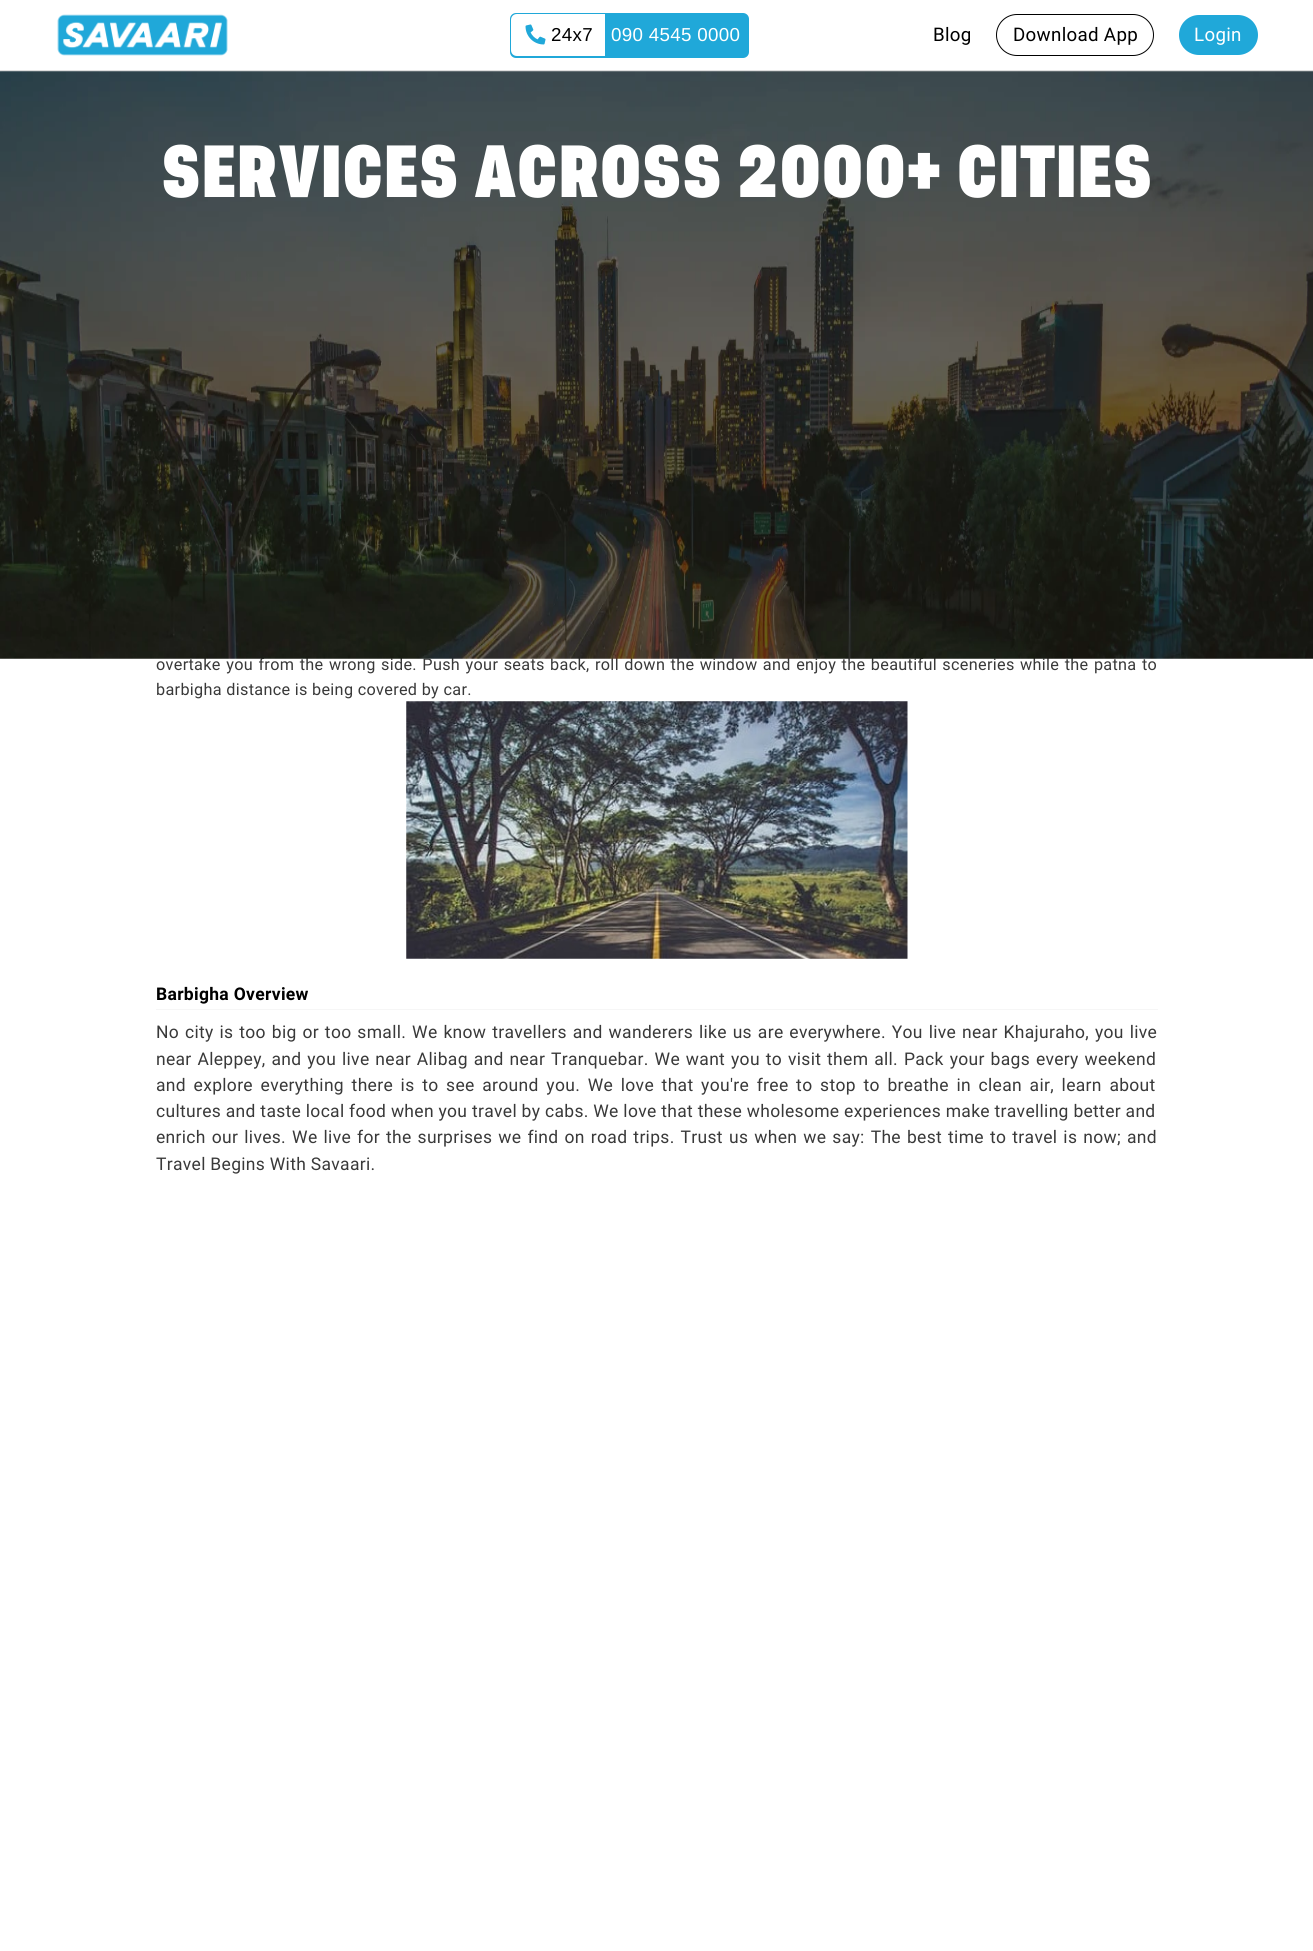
import math
import cairo

surface = cairo.ImageSurface(cairo.Format.RGB24, 1313, 1951)
ctx = cairo.Context(surface)
options = cairo.FontOptions()
options.set_hint_metrics(cairo.HintMetrics.OFF)
options.set_hint_style(cairo.HintStyle.NONE)
ctx.set_font_options(options)
ctx.set_miter_limit(4)


def ink(r, g, b):
    ctx.set_source_rgb(r / 255, g / 255, b / 255)


def write_spaced(x, y, s, letter, word):
    ctx.move_to(x, y)
    for ch in s:
        ctx.show_text(ch)
        ctx.rel_move_to(letter + word * (ch == ' '), 0)


def block(x, y, w, h, *color):
    ink(*color)
    ctx.rectangle(x, y, w, h)
    ctx.fill()


def round_path(x, y, w, h, r):
    ctx.new_sub_path()
    for i, (u, v) in enumerate([(x + w - r, y + h - r), (x + r, y + h - r), (x + r, y + r), (x + w - r, y + r)]):
        ctx.arc(u, v, r, i * math.pi / 2, (i + 1) * math.pi / 2)
    ctx.close_path()


def blur_box(x, y, w, h, r, blur, alpha):
    ctx.push_group_with_content(cairo.Content.ALPHA)
    ctx.set_operator(cairo.Operator.SOURCE)
    for i in range(15, -16, -2):
        e = blur * i / 6
        if min(w, h) + 2 * e > 0:
            ctx.set_source_rgba(0, 0, 0, alpha * math.erfc((i - 1) / 8.5) / 2)
            round_path(x - e, y - e, w + 2 * e, h + 2 * e, max(0, min(r + e + blur * .6, min(w, h) / 2 + e)))
            ctx.fill()
    ctx.mask(ctx.pop_group())


def paste(path, x, y, w, h):
    ctx.save()
    ctx.set_source_surface(cairo.ImageSurface.create_from_png(path), x, y)
    ctx.rectangle(x, y, w, h)
    ctx.fill()
    ctx.restore()


ink(255, 255, 255)
ctx.paint()
ctx.save()
ctx.rectangle(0, 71, 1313, 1)
ctx.clip()
ink(158, 158, 158)
blur_box(0, 0, 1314, 71, 0, 9, 0.6)
ctx.restore()
block(0, 70, 1313, 1, 222, 222, 222)
paste("pic1.png", 57, 14, 171, 42)
ink(32, 168, 217)
round_path(510, 13, 239, 45, 6)
ctx.fill()
ink(255, 255, 255)
ctx.new_path()
ctx.move_to(517, 14)
ctx.line_to(605, 14)
ctx.line_to(605, 56)
ctx.line_to(517, 56)
ctx.curve_to(513.5, 56, 511, 53.5, 511, 50)
ctx.line_to(511, 20)
ctx.curve_to(511, 16.5, 513.5, 14, 517, 14)
ctx.close_path()
ctx.fill()
paste("pic2.png", 525, 24, 21, 21)
ctx.select_font_face("Liberation Sans")
ctx.set_font_size(18.75)
ink(0, 0, 0)
write_spaced(551, 41, "24x7", 0.31, 0)
ink(255, 255, 255)
write_spaced(611, 41, "090 4545 0000", 0.31, 0)
ctx.select_font_face("Roboto")
ink(0, 0, 0)
write_spaced(933, 41, "Blog", 0.31, 0)
round_path(996.5, 14.5, 157, 41, 20.5)
ctx.set_line_width(1)
ctx.stroke()
write_spaced(1013, 41, "Download App", 0.31, 0)
ink(32, 168, 217)
round_path(1179, 15, 79, 40, 20)
ctx.fill()
ink(255, 255, 255)
write_spaced(1194, 41, "Login", 0.31, 0)
ctx.set_font_size(16.25)
ink(57, 57, 57)
write_spaced(156, 670, "overtake you from the wrong side. Push your seats back, roll down the window and enjoy the beautiful sceneries while the patna to", 0.31, 1.1)
paste("pic3.png", 0, 71, 1313, 588)
ctx.select_font_face("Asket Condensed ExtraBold")
ctx.set_font_size(68.75)
ink(255, 255, 255)
write_spaced(161, 197, "SERVICES ACROSS 2000+ CITIES", 0.31, 0)
ctx.select_font_face("Roboto")
ctx.set_font_size(16.25)
ink(57, 57, 57)
write_spaced(156, 695, "barbigha distance is being covered by car.", 0.31, 0)
paste("pic4.png", 406, 701, 502, 258)
block(156, 1009, 1002, 1, 246, 246, 246)
ctx.select_font_face("Roboto", cairo.FontSlant.NORMAL, cairo.FontWeight.BOLD)
ctx.set_font_size(17.5)
ink(0, 0, 0)
write_spaced(156, 1000, "Barbigha Overview", 0.31, 0)
ctx.select_font_face("Roboto")
ink(57, 57, 57)
write_spaced(156, 1038, "No city is too big or too small. We know travellers and wanderers like us are everywhere. You live near Khajuraho, you live", 0.31, 1.25)
write_spaced(156, 1065, "near Aleppey, and you live near Alibag and near Tranquebar. We want you to visit them all. Pack your bags every weekend", 0.31, 1.25)
write_spaced(156, 1091, "and explore everything there is to see around you. We love that you're free to stop to breathe in clean air, learn about", 0.31, 3)
write_spaced(156, 1117, "cultures and taste local food when you travel by cabs. We love that these wholesome experiences make travelling better and", 0.31, 0)
write_spaced(156, 1143, "enrich our lives. We live for the surprises we find on road trips. Trust us when we say: The best time to travel is now; and", 0.31, 1.4)
write_spaced(156, 1170, "Travel Begins With Savaari.", 0.31, 0)
surface.write_to_png("screenshot.png")
